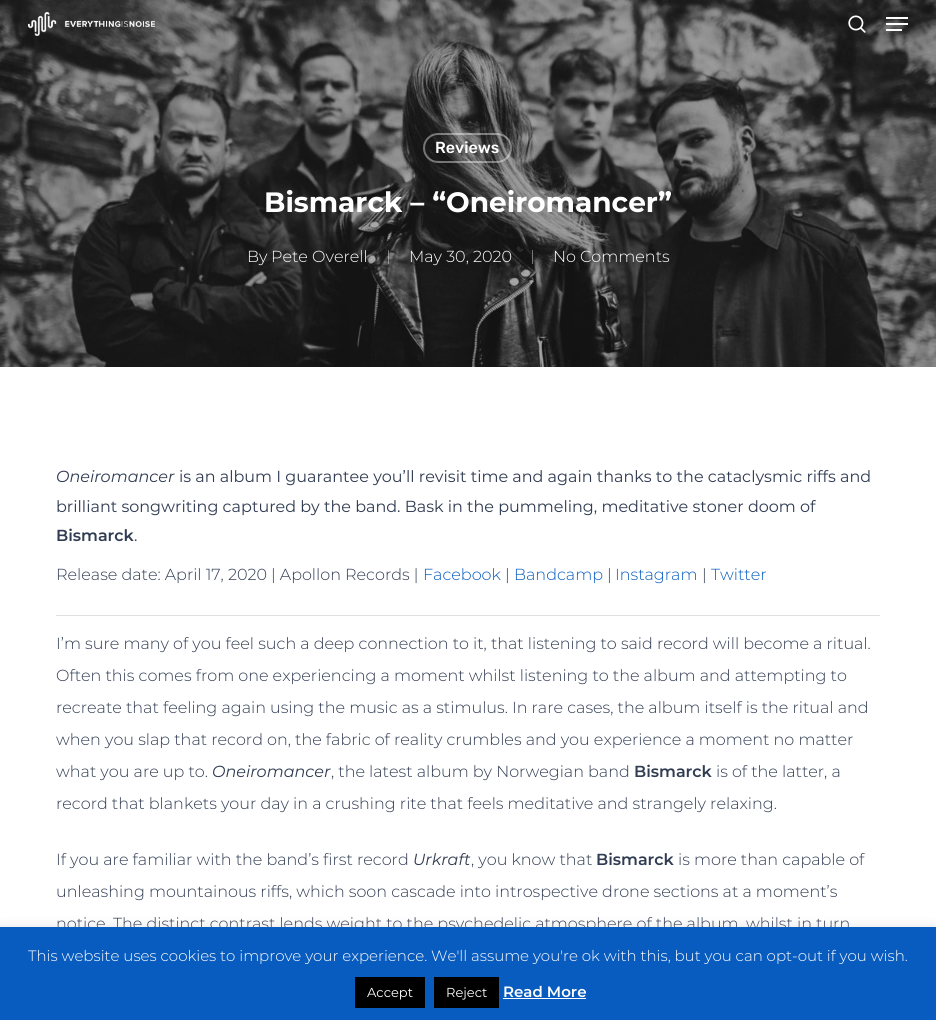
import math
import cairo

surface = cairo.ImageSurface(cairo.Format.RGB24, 936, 1020)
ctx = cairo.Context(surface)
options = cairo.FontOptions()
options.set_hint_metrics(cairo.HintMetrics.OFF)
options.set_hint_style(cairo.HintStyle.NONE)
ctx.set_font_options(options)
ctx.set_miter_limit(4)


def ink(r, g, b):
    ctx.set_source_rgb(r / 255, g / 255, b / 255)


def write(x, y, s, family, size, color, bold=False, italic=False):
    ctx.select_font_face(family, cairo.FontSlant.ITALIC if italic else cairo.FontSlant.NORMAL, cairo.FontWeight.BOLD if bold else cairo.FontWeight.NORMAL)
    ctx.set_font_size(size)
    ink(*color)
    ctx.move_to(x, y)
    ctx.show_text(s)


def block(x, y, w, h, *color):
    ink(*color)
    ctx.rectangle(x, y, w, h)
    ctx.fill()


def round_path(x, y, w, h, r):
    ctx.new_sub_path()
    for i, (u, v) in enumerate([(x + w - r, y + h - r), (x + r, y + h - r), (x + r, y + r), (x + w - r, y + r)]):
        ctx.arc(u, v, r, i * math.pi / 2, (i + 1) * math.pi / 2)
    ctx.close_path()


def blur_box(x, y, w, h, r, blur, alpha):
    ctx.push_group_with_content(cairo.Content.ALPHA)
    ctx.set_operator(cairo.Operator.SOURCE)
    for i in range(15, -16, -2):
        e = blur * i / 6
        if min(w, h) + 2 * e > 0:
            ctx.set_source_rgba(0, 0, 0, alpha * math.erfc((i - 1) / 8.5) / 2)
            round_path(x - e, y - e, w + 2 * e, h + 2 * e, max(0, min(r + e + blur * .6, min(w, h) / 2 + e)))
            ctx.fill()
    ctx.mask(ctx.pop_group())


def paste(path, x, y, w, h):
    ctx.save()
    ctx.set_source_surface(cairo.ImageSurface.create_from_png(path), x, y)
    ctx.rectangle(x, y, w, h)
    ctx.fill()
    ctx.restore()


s1 = dict(family="Rubik Medium", size=16, color=(255, 255, 255))
s2 = dict(family="Montserrat", size=28, color=(255, 255, 255), bold=True)
s3 = dict(family="Montserrat Light", size=16, color=(255, 255, 255))
s4 = dict(family="Montserrat Thin", size=16, color=(48, 60, 82), italic=True)
s5 = dict(family="Montserrat", size=16, color=(48, 60, 82))
s6 = dict(family="Montserrat SemiBold", size=16, color=(48, 60, 82))
s7 = dict(family="Montserrat Light", size=16, color=(48, 60, 82))
s8 = dict(family="Montserrat Light", size=16, color=(8, 92, 191))
s9 = dict(family="Montserrat Light", size=15, color=(255, 255, 255))
s10 = dict(family="Montserrat", size=13, color=(255, 255, 255))
s11 = dict(family="Montserrat SemiBold", size=15, color=(255, 255, 255))

ink(255, 255, 255)
ctx.paint()
paste("pic3.png", 0, 0, 936, 367)
paste("pic1.png", 28, 12, 127, 24)
paste("pic2.png", 848, 15, 18, 18)
block(886, 17, 22, 2, 255, 255, 255)
block(886, 29, 16, 2, 255, 255, 255)
block(886, 23, 22, 2, 255, 255, 255)
round_path(424, 134, 87, 28, 14)
ctx.set_source_rgba(1, 1, 1, 0.4)
ctx.stroke()
write(435, 153, "Reviews", **s1)
write(264, 212, "Bismarck – “Oneiromancer”", **s2)
write(247, 262, "By", **s3)
write(271, 262, "Pete Overell", **s3)
ctx.set_source_rgba(1, 1, 1, 0.4)
ctx.rectangle(388, 250, 1, 14)
ctx.fill()
write(409, 262, "May 30, 2020", **s3)
ctx.set_source_rgba(1, 1, 1, 0.4)
ctx.rectangle(532, 250, 1, 14)
ctx.fill()
write(553, 262, "No Comments", **s3)
write(56, 482, "Oneiromancer", **s4)
write(179, 482, "is an album I guarantee you’ll revisit time and again thanks to the cataclysmic riffs and", **s5)
write(56, 512, "brilliant songwriting captured by the band. Bask in the pummeling, meditative stoner doom of", **s5)
write(56, 541, "Bismarck", **s6)
write(134, 541, ".", **s5)
write(56, 580, "Release date: April 17, 2020 | Apollon Records |", **s7)
write(423, 580, "Facebook", **s8)
write(505, 580, "|", **s7)
write(514, 580, "Bandcamp", **s8)
write(607, 580, "|", **s7)
write(615, 580, "Instagram", **s8)
write(702, 580, "|", **s7)
write(711, 580, "Twitter", **s8)
block(56, 615, 824, 1, 224, 224, 224)
write(56, 649, "I’m sure many of you feel such a deep connection to it, that listening to said record will become a ritual.", **s7)
write(56, 681, "Often this comes from one experiencing a moment whilst listening to the album and attempting to", **s7)
write(56, 713, "recreate that feeling again using the music as a stimulus. In rare cases, the album itself is the ritual and", **s7)
write(56, 745, "when you slap that record on, the fabric of reality crumbles and you experience a moment no matter", **s7)
write(56, 777, "what you are up to.", **s7)
write(212, 777, "Oneiromancer", **s4)
write(331, 777, ", the latest album by Norwegian band", **s7)
write(634, 777, "Bismarck", **s6)
write(716, 777, "is of the latter, a", **s7)
write(56, 809, "record that blankets your day in a crushing rite that feels meditative and strangely relaxing.", **s7)
write(56, 865, "If you are familiar with the band’s first record", **s7)
write(413, 865, "Urkraft", **s4)
write(471, 865, ", you know that", **s7)
write(596, 865, "Bismarck", **s6)
write(678, 865, "is more than capable of", **s7)
write(56, 897, "unleashing mountainous riffs, which soon cascade into introspective drone sections at a moment’s", **s7)
write(56, 929, "notice. The distinct contrast lends weight to the psychedelic atmosphere of the album, whilst in turn", **s7)
ink(172, 171, 171)
blur_box(0, 926, 936, 93, 0, 5, 0.3)
block(0, 927, 936, 93, 8, 92, 191)
write(28, 961, "This website uses cookies to improve your experience. We'll assume you're ok with this, but you can opt-out if you wish.", **s9)
block(355, 977, 70, 31, 0, 0, 0)
write(367, 997, "Accept", **s10)
block(434, 977, 65, 31, 0, 0, 0)
write(446, 997, "Reject", **s10)
write(503, 997, "Read More", **s11)
block(503, 998, 83, 1, 255, 255, 255)
surface.write_to_png("screenshot.png")
